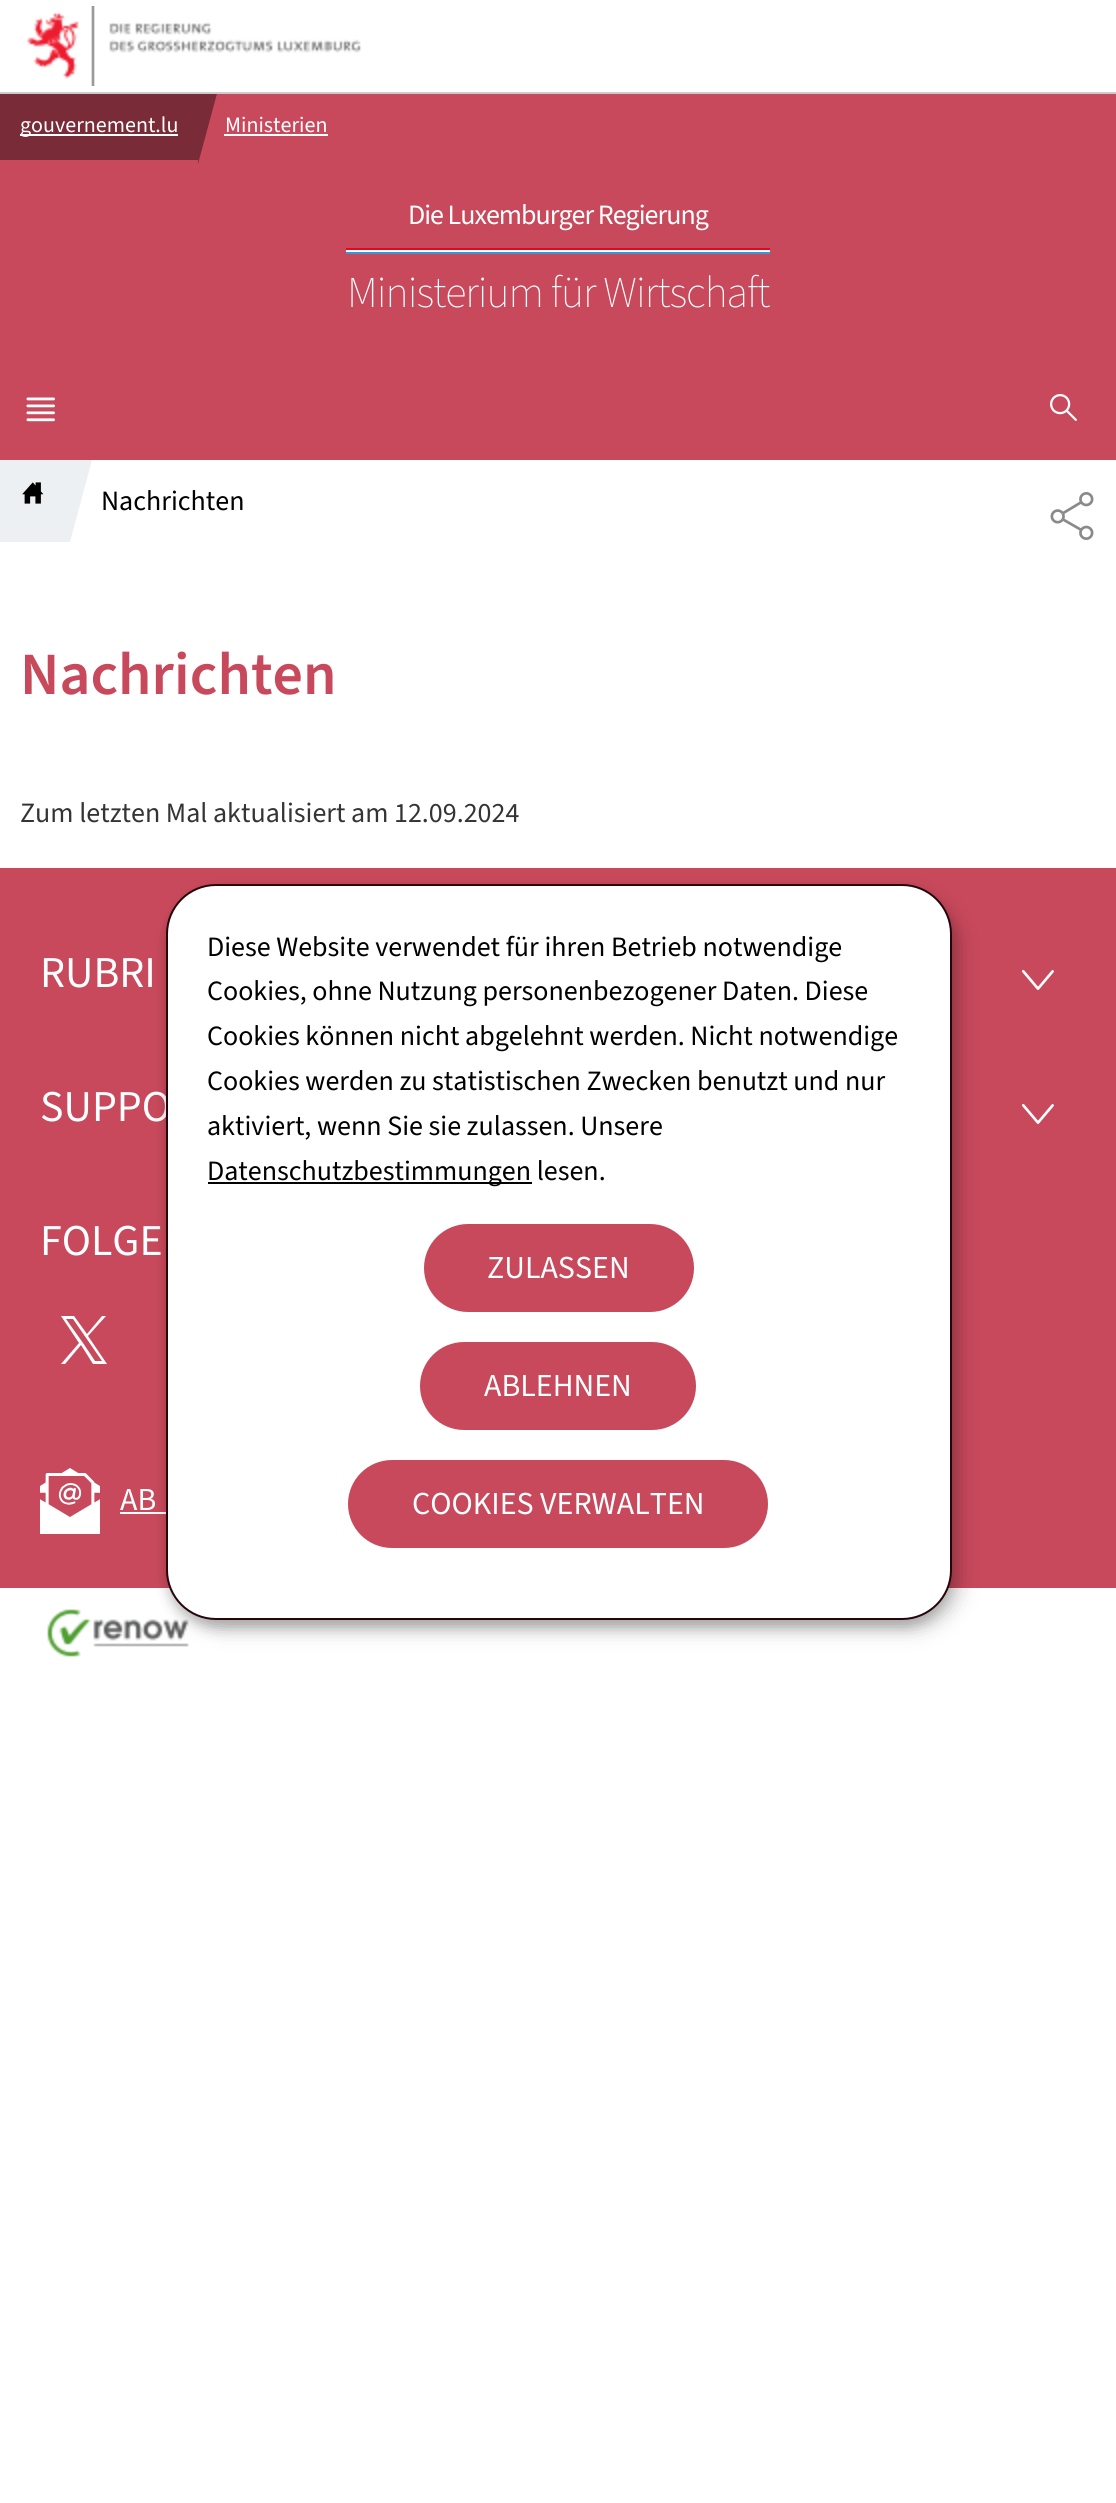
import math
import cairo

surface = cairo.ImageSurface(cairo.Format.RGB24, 1116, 2503)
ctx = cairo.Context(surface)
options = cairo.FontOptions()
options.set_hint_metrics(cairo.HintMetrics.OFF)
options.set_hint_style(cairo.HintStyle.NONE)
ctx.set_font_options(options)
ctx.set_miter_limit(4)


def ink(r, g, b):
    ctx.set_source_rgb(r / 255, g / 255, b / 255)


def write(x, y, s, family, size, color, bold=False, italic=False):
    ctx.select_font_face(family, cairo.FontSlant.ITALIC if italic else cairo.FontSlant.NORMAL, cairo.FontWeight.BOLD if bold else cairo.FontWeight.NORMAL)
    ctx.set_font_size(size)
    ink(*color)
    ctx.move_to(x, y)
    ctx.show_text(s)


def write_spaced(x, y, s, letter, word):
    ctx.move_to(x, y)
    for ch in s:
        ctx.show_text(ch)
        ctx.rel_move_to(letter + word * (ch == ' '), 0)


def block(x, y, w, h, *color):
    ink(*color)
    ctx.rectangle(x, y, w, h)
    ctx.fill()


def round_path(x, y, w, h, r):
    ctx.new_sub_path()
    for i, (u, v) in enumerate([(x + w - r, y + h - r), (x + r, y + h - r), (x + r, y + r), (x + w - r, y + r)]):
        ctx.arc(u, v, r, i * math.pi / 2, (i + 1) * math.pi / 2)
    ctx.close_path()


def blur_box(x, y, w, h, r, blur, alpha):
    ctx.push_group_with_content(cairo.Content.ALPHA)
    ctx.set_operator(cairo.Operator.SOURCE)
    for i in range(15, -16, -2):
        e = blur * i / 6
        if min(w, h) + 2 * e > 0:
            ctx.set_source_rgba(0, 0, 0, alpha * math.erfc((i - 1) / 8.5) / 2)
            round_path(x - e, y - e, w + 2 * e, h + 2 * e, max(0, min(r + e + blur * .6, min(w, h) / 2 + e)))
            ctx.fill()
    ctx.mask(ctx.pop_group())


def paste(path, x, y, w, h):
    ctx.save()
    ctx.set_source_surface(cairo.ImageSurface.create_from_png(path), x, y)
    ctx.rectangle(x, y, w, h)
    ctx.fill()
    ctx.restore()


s1 = dict(family="Source Sans 3", size=22, color=(255, 255, 255))
s2 = dict(family="Source Sans 3", size=28, color=(0, 0, 0))
s3 = dict(family="Source Sans 3 SemiBold", size=60, color=(201, 73, 92))
s4 = dict(family="Source Sans 3", size=28, color=(52, 52, 55))
s5 = dict(family="Source Sans 3", size=44, color=(255, 255, 255))
s6 = dict(family="Source Sans 3", size=32, color=(255, 255, 255))

ink(255, 255, 255)
ctx.paint()
block(0, 92, 1116, 2, 204, 202, 202)
paste("pic1.png", 26, 6, 335, 80)
block(0, 94, 1116, 366, 201, 73, 92)
block(0, 94, 198, 66, 121, 44, 55)
block(20, 134, 158, 2, 255, 255, 255)
write(20, 132, "gouvernement.lu", **s1)
ctx.save()
ctx.rectangle(0, 94, 1116, 1580)
ctx.clip()
ink(121, 44, 55)
ctx.new_path()
ctx.move_to(198, 90)
ctx.line_to(218, 90)
ctx.line_to(198, 164)
ctx.close_path()
ctx.fill()
ctx.restore()
write(225, 132, "Ministerien", **s1)
block(224, 134, 104, 2, 255, 255, 255)
ctx.set_font_size(28)
write_spaced(408, 224, "Die Luxemburger Regierung", -1, 0)
block(346, 250, 424, 2, 255, 255, 255)
block(346, 248, 424, 2, 228, 5, 32)
block(346, 252, 424, 2, 60, 149, 210)
ctx.select_font_face("Source Sans 3 ExtraLight")
ctx.set_font_size(44)
ink(255, 255, 255)
write_spaced(347, 307, "Ministerium für Wirtschaft", -1, 0)
paste("pic2.png", 26, 397, 29, 25)
paste("pic3.png", 1050, 394, 27, 27)
ink(237, 240, 242)
ctx.new_path()
ctx.move_to(-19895, 460)
ctx.line_to(105, 460)
ctx.line_to(83, 542)
ctx.line_to(-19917, 542)
ctx.close_path()
ctx.fill()
paste("pic4.png", 22, 482, 22, 22)
ink(255, 255, 255)
ctx.new_path()
ctx.move_to(92, 460)
ctx.line_to(275, 460)
ctx.line_to(254, 542)
ctx.line_to(70, 542)
ctx.close_path()
ctx.fill()
write(101, 510, "Nachrichten", **s2)
paste("pic5.png", 1050, 492, 44, 48)
write(20, 694, "Nachrichten", **s3)
write(20, 822, "Zum letzten Mal aktualisiert am 12.09.2024", **s4)
block(0, 868, 1116, 720, 201, 73, 92)
write(40, 987, "RUBRI", **s5)
paste("pic6.png", 1022, 969, 32, 21)
write(40, 1121, "SUPPO", **s5)
paste("pic6.png", 1022, 1103, 32, 21)
write(40, 1255, "FOLGE", **s5)
ctx.new_path()
ctx.move_to(88, 1336)
ctx.line_to(106, 1316)
ctx.line_to(102, 1316)
ctx.line_to(87, 1334)
ctx.line_to(74, 1316)
ctx.line_to(61, 1316)
ctx.line_to(79, 1343)
ctx.line_to(61, 1364)
ctx.line_to(65, 1364)
ctx.line_to(81, 1345)
ctx.line_to(93, 1364)
ctx.line_to(107, 1364)
ctx.close_path()
ctx.move_to(83, 1343)
ctx.line_to(66, 1319)
ctx.line_to(73, 1319)
ctx.line_to(102, 1361)
ctx.line_to(95, 1361)
ctx.close_path()
ctx.fill()
paste("pic7.png", 40, 1468, 60, 66)
write(120, 1510, "AB", **s6)
block(120, 1512, 46, 2, 255, 255, 255)
paste("pic8.png", 47, 1609, 142, 48)
ink(0, 0, 0)
blur_box(176, 894, 786, 736, 50, 10, 0.19)
blur_box(166, 892, 786, 736, 50, 6, 0.2)
ink(255, 255, 255)
round_path(167, 885, 784, 734, 49)
ctx.fill_preserve()
ink(39, 5, 10)
ctx.stroke()
write(207, 956, "Diese Website verwendet für ihren Betrieb notwendige", **s2)
write(207, 1000, "Cookies, ohne Nutzung personenbezogener Daten. Diese", **s2)
write(207, 1045, "Cookies können nicht abgelehnt werden. Nicht notwendige", **s2)
write(207, 1090, "Cookies werden zu statistischen Zwecken benutzt und nur", **s2)
write(207, 1135, "aktiviert, wenn Sie sie zulassen. Unsere", **s2)
block(208, 1182, 324, 2, 0, 0, 0)
write(207, 1180, "Datenschutzbestimmungen lesen.", **s2)
ink(201, 73, 92)
round_path(426, 1226, 266, 84, 42)
ctx.fill_preserve()
ctx.set_line_width(4)
ctx.stroke()
write(487, 1278, "ZULASSEN", **s6)
ink(201, 73, 92)
round_path(422, 1344, 272, 84, 42)
ctx.fill_preserve()
ctx.stroke()
write(484, 1396, "ABLEHNEN", **s6)
ink(201, 73, 92)
round_path(350, 1462, 416, 84, 42)
ctx.fill_preserve()
ctx.stroke()
write(412, 1514, "COOKIES VERWALTEN", **s6)
surface.write_to_png("screenshot.png")
